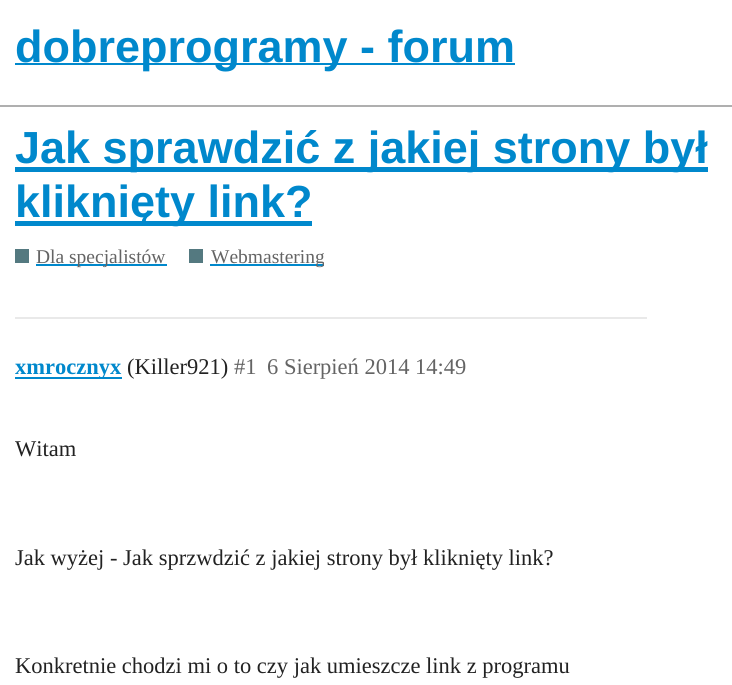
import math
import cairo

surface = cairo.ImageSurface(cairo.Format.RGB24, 732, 685)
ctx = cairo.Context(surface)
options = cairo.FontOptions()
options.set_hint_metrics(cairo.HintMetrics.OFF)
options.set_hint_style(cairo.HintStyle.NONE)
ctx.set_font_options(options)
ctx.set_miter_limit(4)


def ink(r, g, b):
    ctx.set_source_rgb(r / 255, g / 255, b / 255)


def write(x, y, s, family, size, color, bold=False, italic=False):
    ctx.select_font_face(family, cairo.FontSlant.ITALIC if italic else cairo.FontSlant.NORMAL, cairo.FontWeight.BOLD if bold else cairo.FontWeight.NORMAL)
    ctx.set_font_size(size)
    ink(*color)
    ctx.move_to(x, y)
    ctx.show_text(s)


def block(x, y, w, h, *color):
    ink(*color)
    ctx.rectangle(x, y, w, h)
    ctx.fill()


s1 = dict(family="Liberation Sans", size=45, color=(0, 136, 204), bold=True)
s2 = dict(family="Liberation Serif", size=19.5, color=(100, 100, 100))
s3 = dict(family="Liberation Serif", size=22.5, color=(0, 136, 204), bold=True)
s4 = dict(family="Liberation Serif", size=22.5, color=(34, 34, 34))
s5 = dict(family="Liberation Serif", size=22.5, color=(100, 100, 100))

ink(255, 255, 255)
ctx.paint()
block(0, 105, 732, 2, 175, 175, 175)
block(15, 63, 500, 2, 0, 136, 204)
write(15, 62, "dobreprogramy - forum", **s1)
block(15, 167, 693, 5, 0, 136, 204)
write(15, 163, "Jak sprawdzić z jakiej strony był", **s1)
block(15, 221, 297, 5, 0, 136, 204)
write(15, 217, "kliknięty link?", **s1)
block(15, 249, 14, 14, 84, 121, 128)
block(36, 264, 131, 2, 0, 136, 204)
write(36, 263, "Dla specjalistów", **s2)
block(189, 249, 14, 14, 84, 121, 128)
block(210, 264, 114, 2, 0, 136, 204)
ctx.save()
ctx.rectangle(210, 243, 114, 27)
ctx.clip()
write(211, 263, "Webmastering", **s2)
ctx.restore()
block(15, 317, 632, 2, 233, 233, 233)
block(15, 377, 107, 2, 0, 136, 204)
write(15, 374, "xmrocznyx", **s3)
write(127, 374, "(Killer921)", **s4)
write(234, 374, "#1", **s5)
write(267, 374, "6 Sierpień 2014 14:49", **s5)
write(15, 456, "Witam", **s4)
write(15, 565, "Jak wyżej - Jak sprzwdzić z jakiej strony był kliknięty link?", **s4)
write(15, 673, "Konkretnie chodzi mi o to czy jak umieszcze link z programu", **s4)
surface.write_to_png("screenshot.png")
